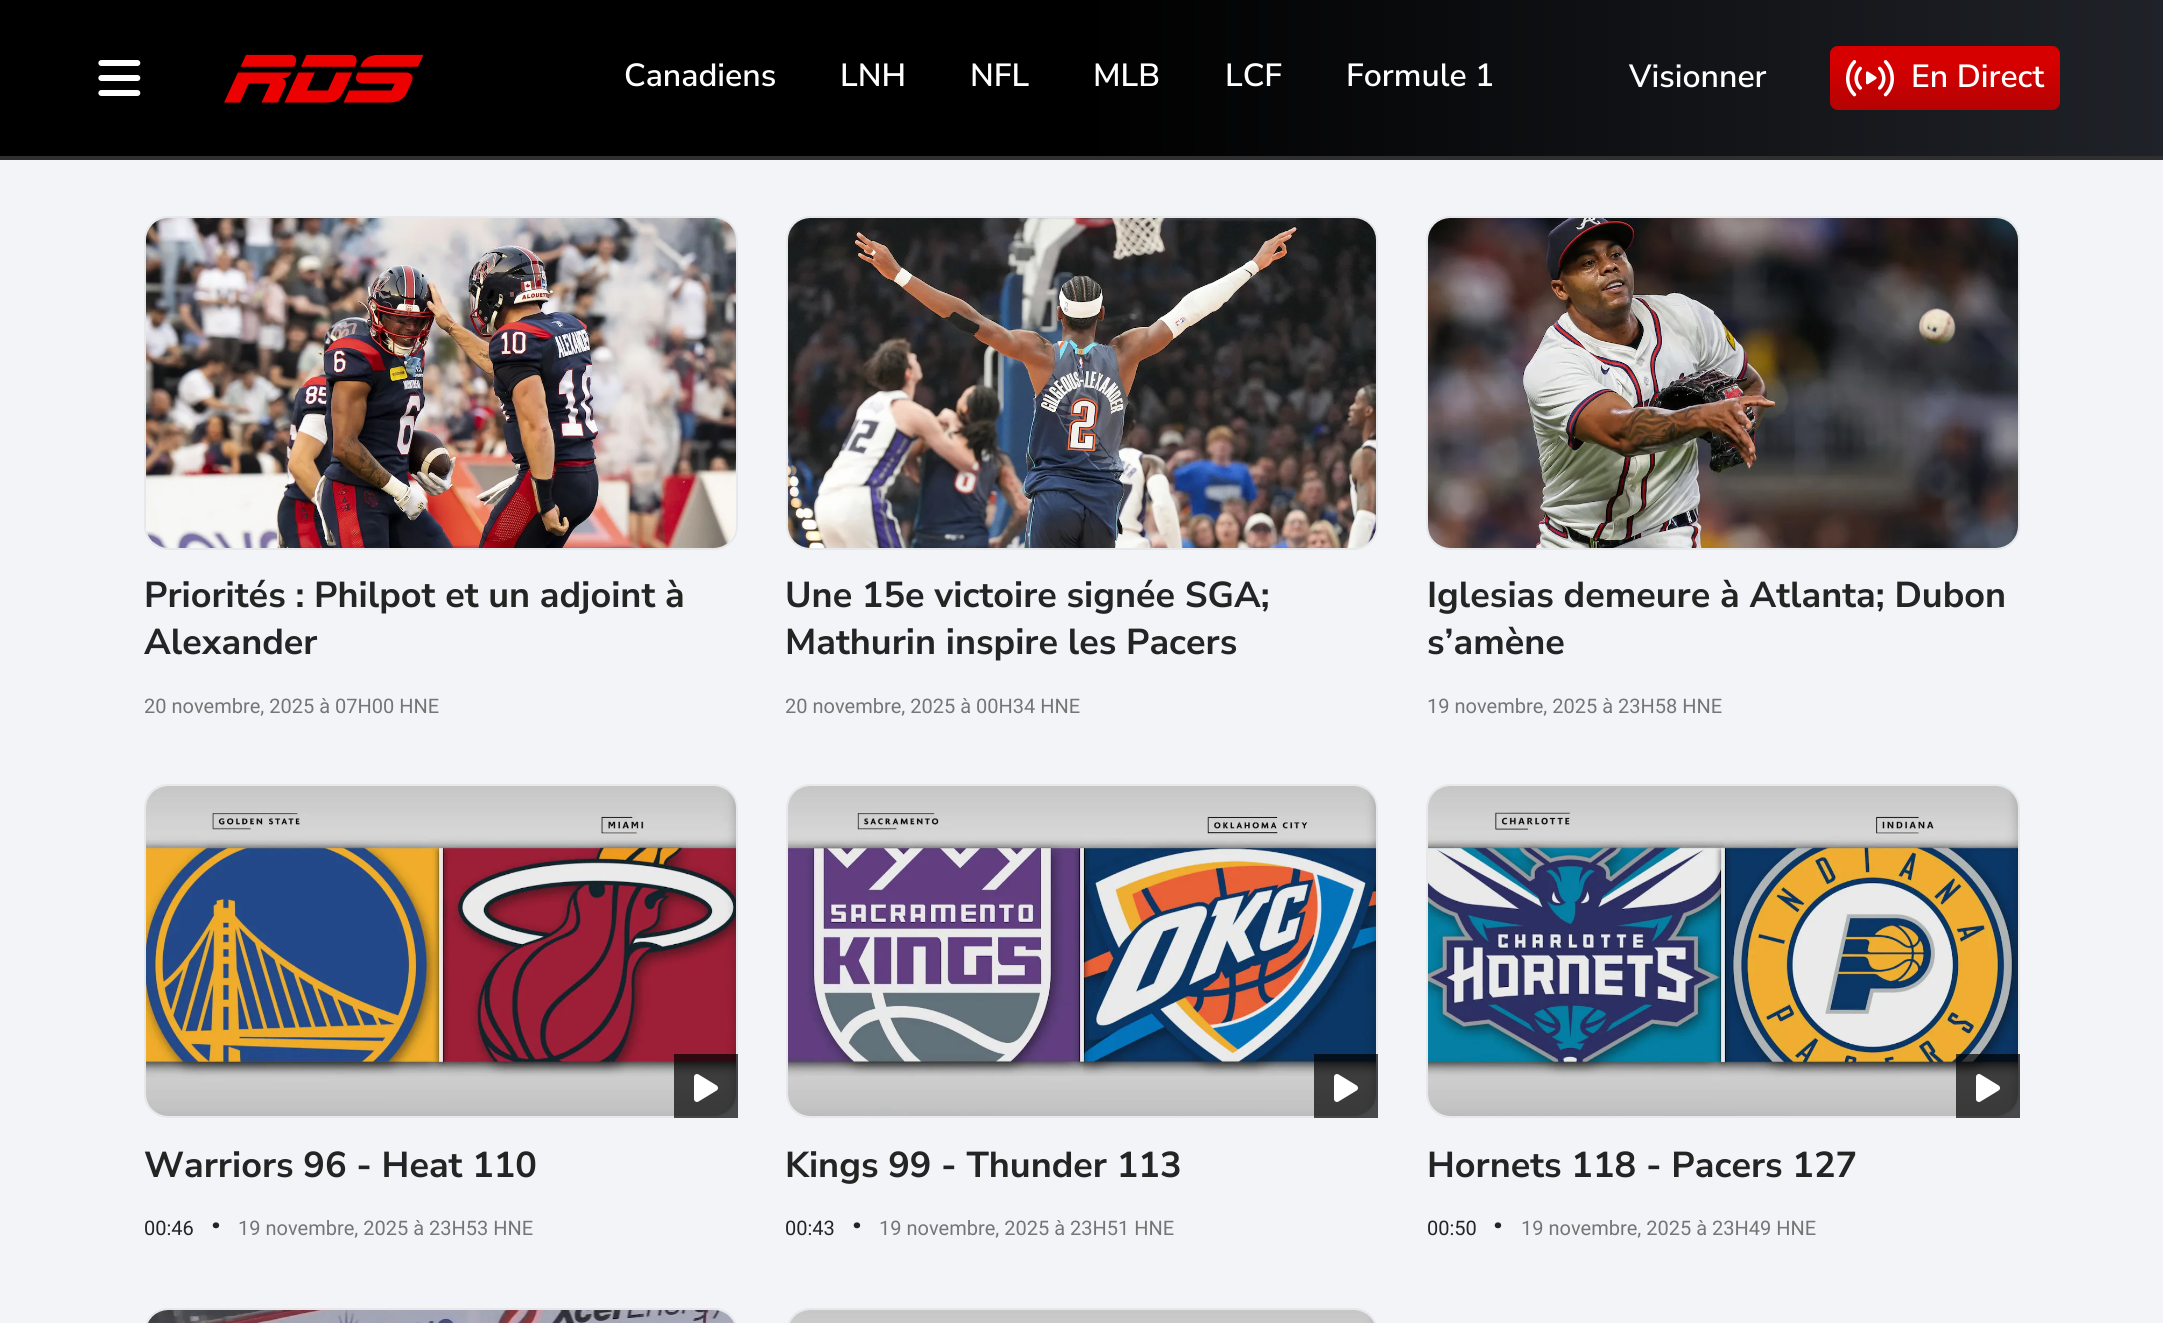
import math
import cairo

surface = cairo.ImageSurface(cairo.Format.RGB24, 2163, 1323)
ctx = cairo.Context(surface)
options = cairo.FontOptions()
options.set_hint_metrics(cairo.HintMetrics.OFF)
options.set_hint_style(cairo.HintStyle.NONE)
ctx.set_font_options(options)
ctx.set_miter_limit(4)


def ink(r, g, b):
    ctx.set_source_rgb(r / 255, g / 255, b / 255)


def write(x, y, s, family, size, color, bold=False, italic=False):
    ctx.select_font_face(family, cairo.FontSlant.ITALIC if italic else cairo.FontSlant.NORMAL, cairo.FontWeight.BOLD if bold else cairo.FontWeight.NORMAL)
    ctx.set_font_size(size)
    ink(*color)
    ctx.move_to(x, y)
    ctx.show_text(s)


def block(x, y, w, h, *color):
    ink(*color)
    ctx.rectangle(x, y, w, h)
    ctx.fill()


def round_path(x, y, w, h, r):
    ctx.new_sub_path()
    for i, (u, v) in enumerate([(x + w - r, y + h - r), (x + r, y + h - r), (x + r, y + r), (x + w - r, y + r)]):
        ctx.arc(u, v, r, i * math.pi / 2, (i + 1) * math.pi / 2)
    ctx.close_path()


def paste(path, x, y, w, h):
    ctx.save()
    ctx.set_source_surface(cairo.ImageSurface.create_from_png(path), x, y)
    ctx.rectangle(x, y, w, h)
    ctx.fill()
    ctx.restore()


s1 = dict(family="Nunito Sans SemiBold", size=32, color=(255, 255, 255))
s2 = dict(family="Nunito Sans", size=36, color=(36, 36, 36), bold=True)
s3 = dict(family="Roboto", size=20, color=(117, 117, 117))
s4 = dict(family="Roboto", size=20, color=(36, 36, 36))
s5 = dict(family="Roboto", size=40, color=(36, 36, 36), bold=True)

ink(242, 244, 247)
ctx.paint()
gradient = cairo.LinearGradient(0, 78, 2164, 78)
gradient.add_color_stop_rgba(0.5, 0, 0, 0, 1)
gradient.add_color_stop_rgba(1, 0.122, 0.133, 0.157, 1)
ctx.set_source(gradient)
ctx.rectangle(0, 0, 2163, 156)
ctx.fill()
block(0, 156, 2163, 4, 47, 47, 47)
paste("pic1.png", 98, 60, 43, 36)
paste("pic2.png", 224, 54, 200, 49)
write(624, 86, "Canadiens", **s1)
write(840, 86, "LNH", **s1)
write(970, 86, "NFL", **s1)
write(1093, 86, "MLB", **s1)
write(1225, 86, "LCF", **s1)
write(1346, 86, "Formule 1", **s1)
write(1629, 87, "Visionner", **s1)
gradient = cairo.LinearGradient(1945, 46, 1945, 156)
gradient.add_color_stop_rgba(0.15, 0.843, 0, 0, 1)
gradient.add_color_stop_rgba(1, 0.573, 0.02, 0.02, 1)
ctx.set_source(gradient)
round_path(1830, 46, 230, 64, 8)
ctx.fill()
paste("pic3.png", 1846, 60, 48, 37)
write(1911, 87, "En Direct", **s1)
round_path(145, 217, 592, 332, 23)
ink(230, 232, 234)
ctx.stroke()
paste("pic4.png", 146, 218, 590, 330)
write(144, 607, "Priorités : Philpot et un adjoint à", **s2)
write(144, 654, "Alexander", **s2)
write(144, 713, "20 novembre, 2025 à 07H00 HNE", **s3)
round_path(787, 217, 590, 332, 23)
ink(230, 232, 234)
ctx.stroke()
paste("pic5.png", 788, 218, 588, 330)
write(785, 607, "Une 15e victoire signée SGA;", **s2)
write(785, 654, "Mathurin inspire les Pacers", **s2)
write(785, 713, "20 novembre, 2025 à 00H34 HNE", **s3)
round_path(1427, 217, 592, 332, 23)
ink(230, 232, 234)
ctx.stroke()
paste("pic6.png", 1428, 218, 590, 330)
write(1427, 607, "Iglesias demeure à Atlanta; Dubon", **s2)
write(1427, 654, "s’amène", **s2)
write(1427, 713, "19 novembre, 2025 à 23H58 HNE", **s3)
round_path(145, 785, 592, 332, 23)
ink(230, 232, 234)
ctx.stroke()
paste("pic7.png", 146, 786, 590, 330)
ctx.set_source_rgba(0, 0, 0, 0.7)
ctx.rectangle(674, 1054, 64, 64)
ctx.fill()
paste("pic8.png", 694, 1074, 24, 28)
write(144, 1177, "Warriors 96 - Heat 110", **s2)
write(144, 1235, "00:46", **s4)
write(210, 1239, "·", **s5)
write(238, 1235, "19 novembre, 2025 à 23H53 HNE", **s3)
round_path(787, 785, 590, 332, 23)
ink(230, 232, 234)
ctx.stroke()
paste("pic9.png", 788, 786, 588, 330)
ctx.set_source_rgba(0, 0, 0, 0.7)
ctx.rectangle(1314, 1054, 64, 64)
ctx.fill()
paste("pic10.png", 1334, 1074, 24, 28)
write(785, 1177, "Kings 99 - Thunder 113", **s2)
write(785, 1235, "00:43", **s4)
write(851, 1239, "·", **s5)
write(879, 1235, "19 novembre, 2025 à 23H51 HNE", **s3)
round_path(1427, 785, 592, 332, 23)
ink(230, 232, 234)
ctx.stroke()
paste("pic11.png", 1428, 786, 590, 330)
ctx.set_source_rgba(0, 0, 0, 0.7)
ctx.rectangle(1956, 1054, 64, 64)
ctx.fill()
paste("pic12.png", 1976, 1074, 24, 28)
write(1427, 1177, "Hornets 118 - Pacers 127", **s2)
write(1427, 1235, "00:50", **s4)
write(1492, 1239, "·", **s5)
write(1521, 1235, "19 novembre, 2025 à 23H49 HNE", **s3)
round_path(145, 1309, 592, 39, 23)
ink(230, 232, 234)
ctx.stroke()
paste("pic13.png", 148, 1310, 586, 13)
round_path(787, 1309, 590, 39, 23)
ctx.stroke()
paste("pic14.png", 790, 1310, 584, 13)
surface.write_to_png("screenshot.png")
